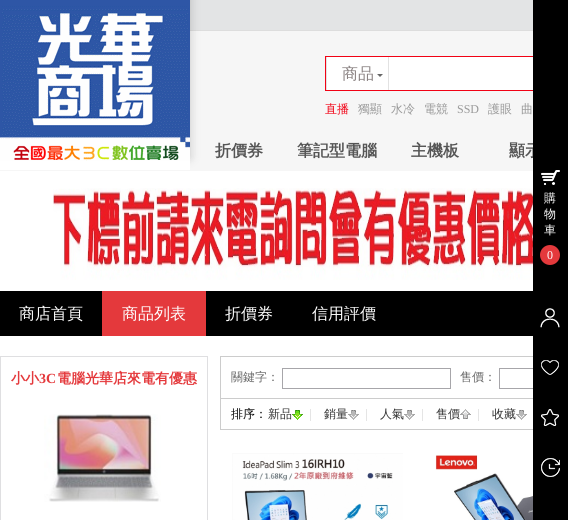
import math
import cairo

surface = cairo.ImageSurface(cairo.Format.RGB24, 568, 520)
ctx = cairo.Context(surface)
options = cairo.FontOptions()
options.set_hint_metrics(cairo.HintMetrics.OFF)
options.set_hint_style(cairo.HintStyle.NONE)
ctx.set_font_options(options)
ctx.set_miter_limit(4)


def ink(r, g, b):
    ctx.set_source_rgb(r / 255, g / 255, b / 255)


def write(x, y, s, family, size, color, bold=False, italic=False):
    ctx.select_font_face(family, cairo.FontSlant.ITALIC if italic else cairo.FontSlant.NORMAL, cairo.FontWeight.BOLD if bold else cairo.FontWeight.NORMAL)
    ctx.set_font_size(size)
    ink(*color)
    ctx.move_to(x, y)
    ctx.show_text(s)


def block(x, y, w, h, *color):
    ink(*color)
    ctx.rectangle(x, y, w, h)
    ctx.fill()


def round_path(x, y, w, h, r):
    ctx.new_sub_path()
    for i, (u, v) in enumerate([(x + w - r, y + h - r), (x + r, y + h - r), (x + r, y + r), (x + w - r, y + r)]):
        ctx.arc(u, v, r, i * math.pi / 2, (i + 1) * math.pi / 2)
    ctx.close_path()


def blur_box(x, y, w, h, r, blur, alpha):
    ctx.push_group_with_content(cairo.Content.ALPHA)
    ctx.set_operator(cairo.Operator.SOURCE)
    for i in range(15, -16, -2):
        e = blur * i / 6
        if min(w, h) + 2 * e > 0:
            ctx.set_source_rgba(0, 0, 0, alpha * math.erfc((i - 1) / 8.5) / 2)
            round_path(x - e, y - e, w + 2 * e, h + 2 * e, max(0, min(r + e + blur * .6, min(w, h) / 2 + e)))
            ctx.fill()
    ctx.mask(ctx.pop_group())


def paste(path, x, y, w, h):
    ctx.save()
    ctx.set_source_surface(cairo.ImageSurface.create_from_png(path), x, y)
    ctx.rectangle(x, y, w, h)
    ctx.fill()
    ctx.restore()


s1 = dict(family="WenQuanYi Zen Hei Medium", size=16, color=(137, 129, 129))
s2 = dict(family="WenQuanYi Zen Hei Medium", size=12, color=(241, 2, 21))
s3 = dict(family="WenQuanYi Zen Hei Medium", size=12, color=(153, 153, 153))
s4 = dict(family="Liberation Serif", size=12, color=(153, 153, 153))
s5 = dict(family="WenQuanYi Zen Hei", size=16, color=(85, 85, 85), bold=True)
s6 = dict(family="WenQuanYi Zen Hei Medium", size=12, color=(255, 255, 255))
s7 = dict(family="Liberation Serif", size=12, color=(255, 255, 255))
s8 = dict(family="WenQuanYi Zen Hei Medium", size=16, color=(255, 255, 255))
s9 = dict(family="WenQuanYi Zen Hei", size=14, color=(228, 57, 60), bold=True)
s10 = dict(family="Liberation Serif", size=14, color=(228, 57, 60), bold=True)
s11 = dict(family="WenQuanYi Zen Hei Medium", size=12, color=(102, 102, 102))
s12 = dict(family="WenQuanYi Zen Hei Medium", size=12, color=(0, 0, 0))
s13 = dict(family="WenQuanYi Zen Hei Medium", size=12, color=(51, 51, 51))

ink(255, 255, 255)
ctx.paint()
block(190, 0, 343, 30, 227, 228, 229)
block(190, 30, 343, 1, 221, 221, 221)
block(0, 31, 533, 140, 246, 246, 246)
ink(0, 0, 0)
blur_box(0, -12, 190, 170, 0, 5, 0.2)
block(0, 161, 190, 9, 255, 255, 255)
paste("pic1.png", 0, 0, 190, 161)
ctx.rectangle(325.5, 56.5, 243, 34)
ink(241, 2, 21)
ctx.set_line_width(1)
ctx.stroke()
block(327, 57, 206, 33, 255, 255, 255)
block(388, 57, 1, 33, 226, 226, 226)
block(326, 57, 1, 33, 226, 226, 226)
write(342, 79, "商品", **s1)
ink(102, 102, 102)
ctx.new_path()
ctx.move_to(377, 74)
ctx.line_to(383, 74)
ctx.line_to(380, 77)
ctx.close_path()
ctx.fill()
write(325, 113, "直播", **s2)
write(358, 113, "獨顯", **s3)
write(391, 113, "水冷", **s3)
write(424, 113, "電競", **s3)
write(457, 113, "SSD", **s4)
write(488, 113, "護眼", **s3)
write(521, 113, "曲", **s3)
write(215, 156, "折價券", **s5)
write(297, 156, "筆記型電腦", **s5)
write(411, 156, "主機板", **s5)
write(509, 156, "顯示", **s5)
paste("pic2.png", 53, 188, 480, 92)
ctx.rectangle(220.5, 356.5, 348, 42)
ink(204, 204, 204)
ctx.stroke()
ctx.rectangle(499.5, 368.5, 44, 20)
ink(167, 166, 170)
ctx.stroke()
block(533, 0, 35, 520, 0, 0, 0)
paste("pic3.png", 541, 170, 19, 15)
write(544, 202, "購", **s6)
write(544, 218, "物", **s6)
write(544, 234, "車", **s6)
ink(228, 57, 60)
ctx.new_path()
ctx.arc(550, 255, 10, 0, 2 * math.pi)
ctx.fill()
write(547, 259, "0", **s7)
paste("pic4.png", 540, 308, 20, 20)
paste("pic5.png", 541, 360, 18, 15)
paste("pic6.png", 541, 409, 18, 17)
paste("pic7.png", 541, 458, 19, 19)
block(0, 291, 533, 45, 0, 0, 0)
write(19, 319, "商店首頁", **s8)
block(102, 291, 104, 45, 228, 57, 60)
write(122, 319, "商品列表", **s8)
write(225, 319, "折價券", **s8)
write(312, 319, "信用評價", **s8)
ctx.rectangle(0.5, 356.5, 207, 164)
ink(223, 223, 225)
ctx.stroke()
write(11, 383, "小小", **s9)
write(39, 383, "3C", **s10)
write(57, 383, "電腦光華店來電有優惠", **s9)
paste("pic8.png", 44, 414, 117, 88)
write(231, 381, "關鍵字：", **s11)
ctx.rectangle(282.5, 368.5, 168, 20)
ink(167, 166, 170)
ctx.stroke()
write(460, 381, "售價：", **s11)
block(220, 429, 313, 1, 204, 204, 204)
block(220, 399, 1, 31, 204, 204, 204)
write(231, 418, "排序：", **s12)
block(310, 409, 1, 12, 229, 229, 229)
write(268, 418, "新品", **s13)
paste("pic9.png", 292, 410, 11, 10)
block(366, 409, 1, 12, 229, 229, 229)
write(324, 418, "銷量", **s13)
paste("pic10.png", 348, 410, 11, 10)
block(422, 409, 1, 12, 229, 229, 229)
write(380, 418, "人氣", **s13)
paste("pic10.png", 404, 410, 11, 10)
block(478, 409, 1, 12, 229, 229, 229)
write(436, 418, "售價", **s13)
paste("pic11.png", 460, 409, 11, 10)
write(492, 418, "收藏", **s13)
paste("pic10.png", 516, 410, 11, 10)
paste("pic12.png", 232, 453, 171, 67)
paste("pic13.png", 435, 455, 98, 65)
surface.write_to_png("screenshot.png")
